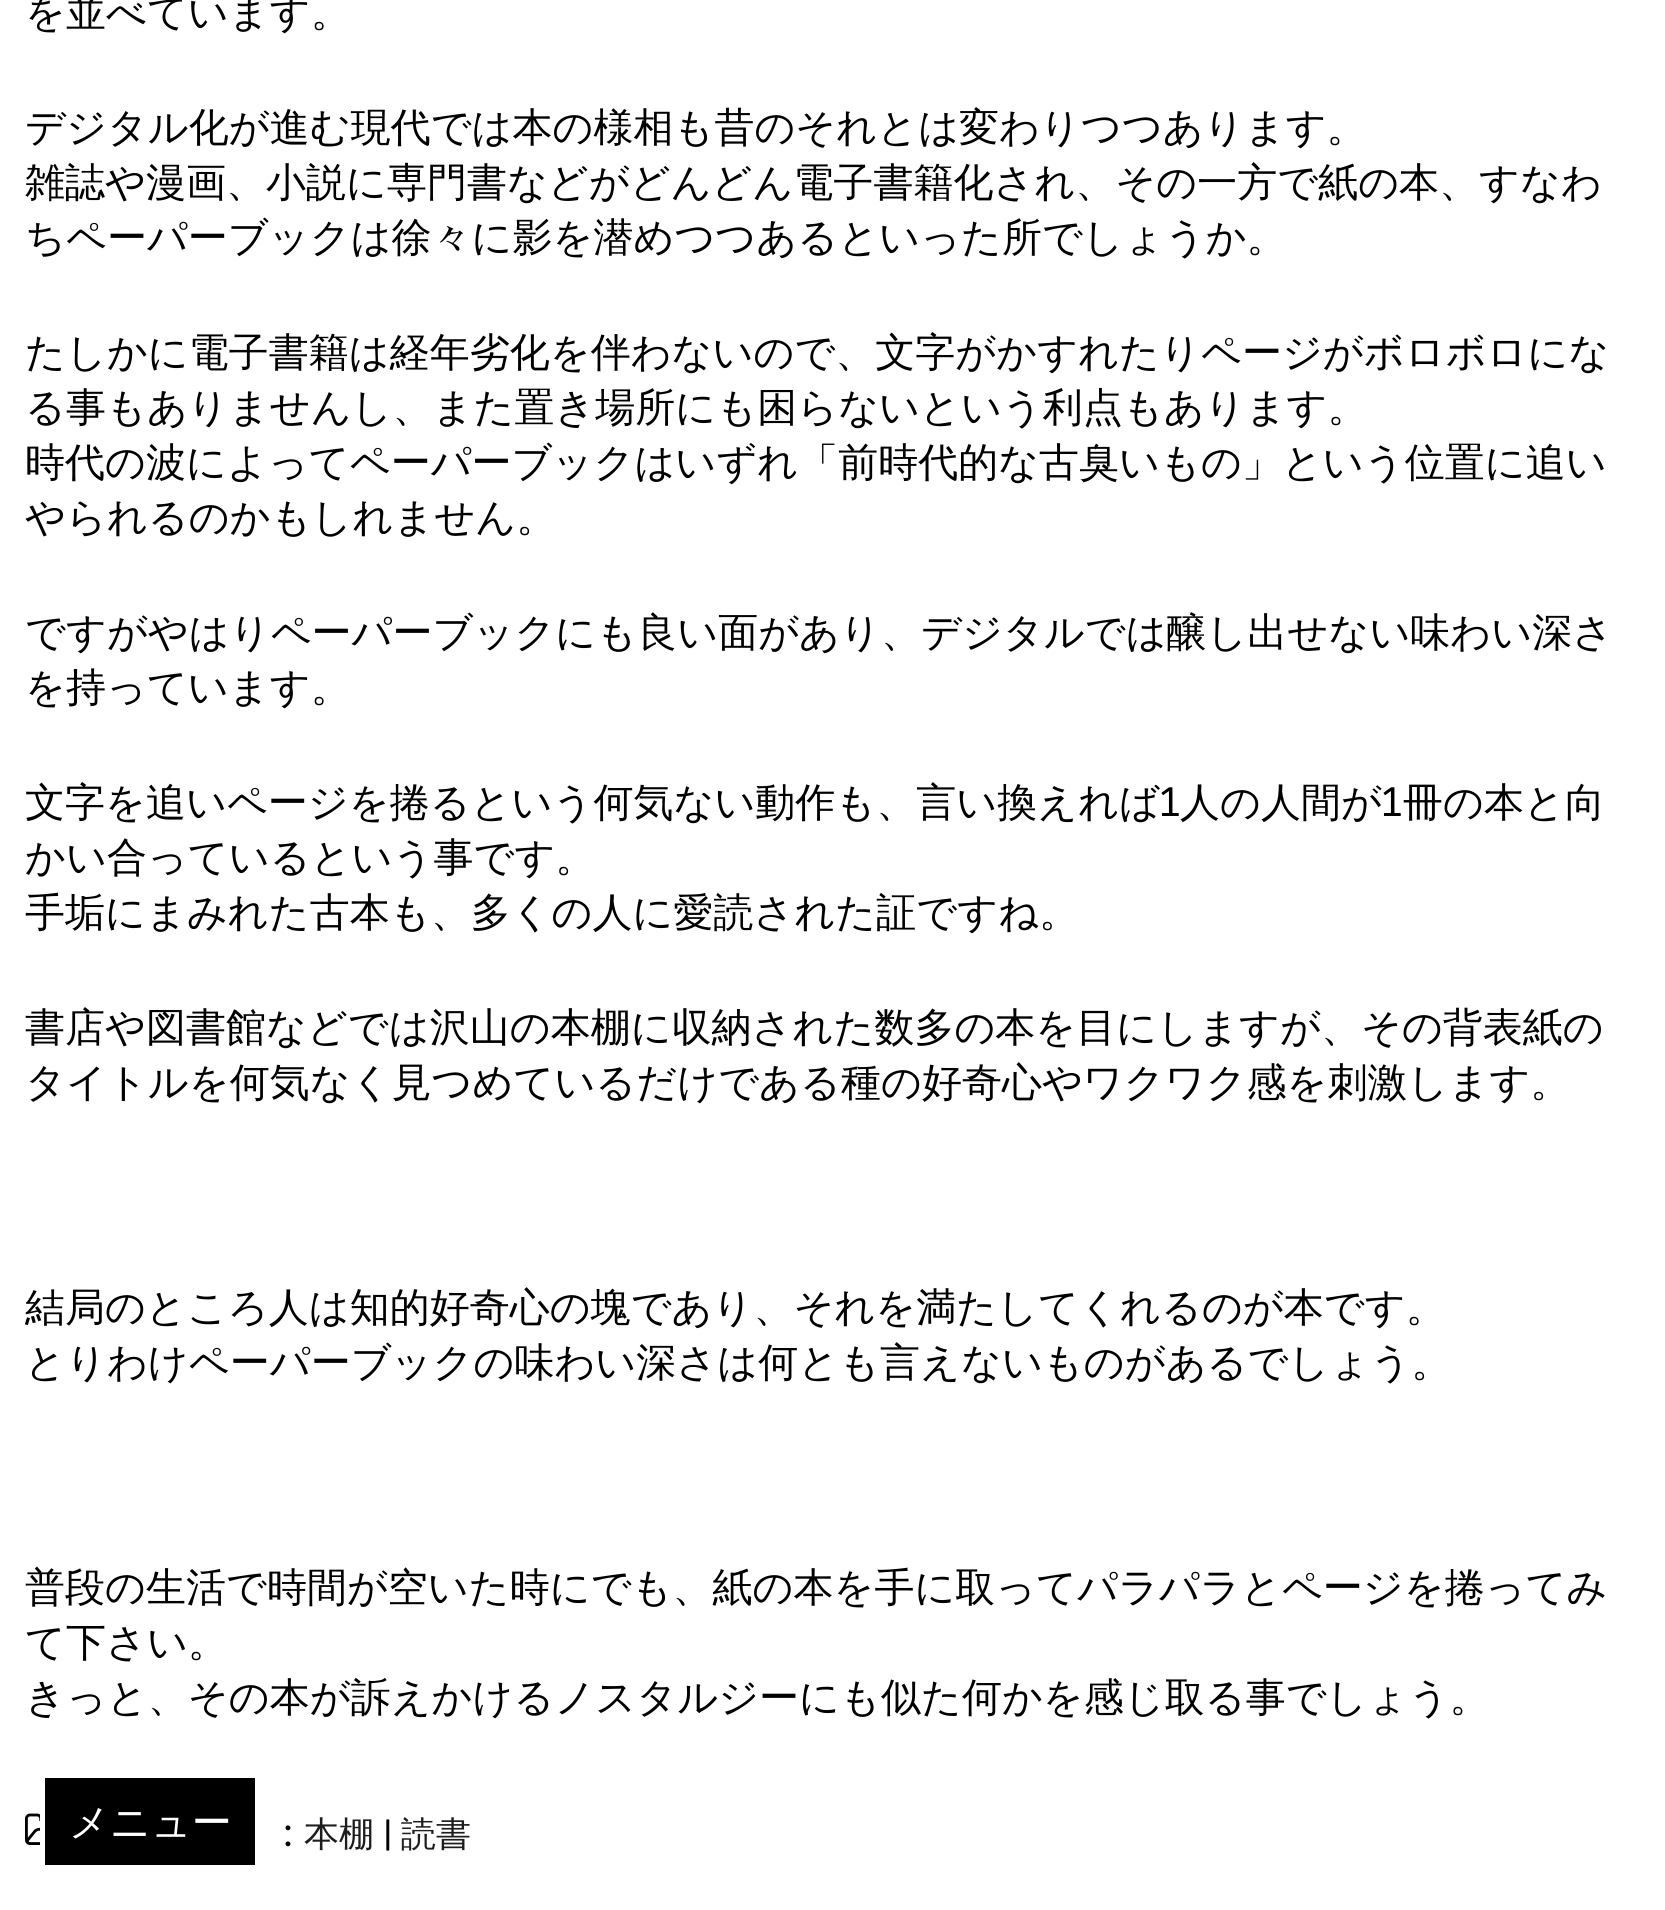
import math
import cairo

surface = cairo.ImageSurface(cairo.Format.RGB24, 1665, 1910)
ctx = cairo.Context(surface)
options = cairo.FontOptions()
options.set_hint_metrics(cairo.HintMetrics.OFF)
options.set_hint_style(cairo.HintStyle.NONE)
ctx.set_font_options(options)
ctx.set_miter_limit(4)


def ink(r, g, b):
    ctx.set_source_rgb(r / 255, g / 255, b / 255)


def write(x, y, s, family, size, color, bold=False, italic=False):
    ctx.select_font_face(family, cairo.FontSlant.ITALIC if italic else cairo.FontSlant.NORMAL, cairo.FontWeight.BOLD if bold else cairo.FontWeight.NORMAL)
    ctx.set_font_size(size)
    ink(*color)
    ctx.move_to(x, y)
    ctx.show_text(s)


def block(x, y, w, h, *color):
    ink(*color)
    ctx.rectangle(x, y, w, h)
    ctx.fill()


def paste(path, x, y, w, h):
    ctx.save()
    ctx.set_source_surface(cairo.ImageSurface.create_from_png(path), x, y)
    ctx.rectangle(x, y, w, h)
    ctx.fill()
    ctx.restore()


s1 = dict(family="WenQuanYi Zen Hei Medium", size=40, color=(0, 0, 0))
s2 = dict(family="Sanchez", size=40, color=(0, 0, 0))
s3 = dict(family="Sanchez", size=40, color=(0, 0, 0), bold=True)
s4 = dict(family="WenQuanYi Zen Hei Medium", size=35, color=(29, 29, 29))
s5 = dict(family="Sanchez", size=35, color=(0, 0, 0))
s6 = dict(family="WenQuanYi Zen Hei Medium", size=40, color=(255, 255, 255))

ink(255, 255, 255)
ctx.paint()
write(25, 26, "を並べています。", **s1)
write(25, 141, "デジタル化が進む現代では本の様相も昔のそれとは変わりつつあります。", **s1)
write(25, 196, "雑誌や漫画、小説に専門書などがどんどん電子書籍化され、その一方で紙の本、すなわ", **s1)
write(25, 251, "ちペーパーブックは徐々に影を潜めつつあるといった所でしょうか。", **s1)
write(25, 366, "たしかに電子書籍は経年劣化を伴わないので、文字がかすれたりページがボロボロにな", **s1)
write(25, 421, "る事もありませんし、また置き場所にも困らないという利点もあります。", **s1)
write(25, 476, "時代の波によってペーパーブックはいずれ「前時代的な古臭いもの」という位置に追い", **s1)
write(25, 531, "やられるのかもしれません。", **s1)
write(25, 646, "ですがやはりペーパーブックにも良い面があり、デジタルでは醸し出せない味わい深さ", **s1)
write(25, 701, "を持っています。", **s1)
write(25, 816, "文字を追いページを捲るという何気ない動作も、言い換えれば", **s1)
write(1160, 816, "1", **s2)
write(1180, 816, "人の人間が", **s1)
write(1382, 816, "1", **s2)
write(1403, 816, "冊の本と向", **s1)
write(25, 871, "かい合っているという事です。", **s1)
write(25, 926, "手垢にまみれた古本も、多くの人に愛読された証ですね。", **s1)
write(25, 1041, "書店や図書館などでは沢山の本棚に収納された数多の本を目にしますが、その背表紙の", **s1)
write(25, 1096, "タイトルを何気なく見つめているだけである種の好奇心やワクワク感を刺激します。", **s1)
write(25, 1321, "結局のところ人は知的好奇心の塊であり、それを満たしてくれるのが本です。", **s1)
write(25, 1376, "とりわけペーパーブックの味わい深さは何とも言えないものがあるでしょう。", **s1)
write(25, 1601, "普段の生活で時間が空いた時にでも、紙の本を手に取ってパラパラとページを捲ってみ", **s1)
write(25, 1656, "て下さい。", **s1)
write(25, 1711, "きっと、その本が訴えかけるノスタルジーにも似た何かを感じ取る事でしょう。", **s1)
paste("pic1.png", 25, 1813, 15, 32)
write(284, 1846, ":", **s3)
write(304, 1846, "本棚", **s4)
write(385, 1846, "|", **s5)
write(401, 1846, "読書", **s4)
block(45, 1778, 210, 87, 0, 0, 0)
write(69, 1836, "メニュー", **s6)
surface.write_to_png("screenshot.png")
